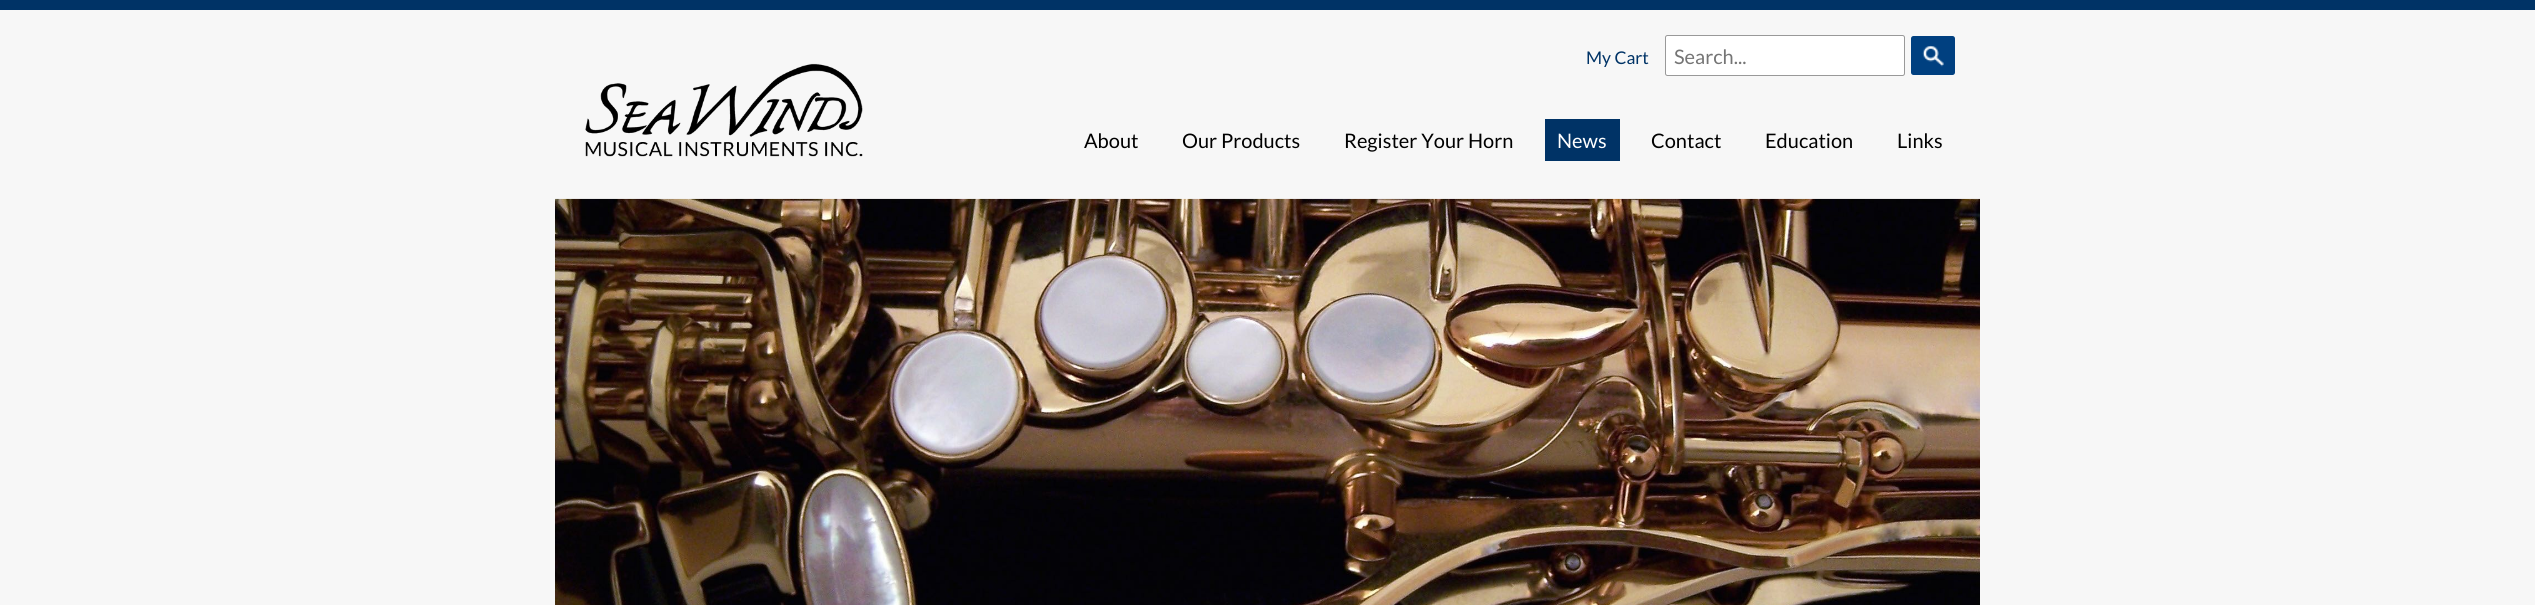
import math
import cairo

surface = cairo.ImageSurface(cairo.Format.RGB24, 2535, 605)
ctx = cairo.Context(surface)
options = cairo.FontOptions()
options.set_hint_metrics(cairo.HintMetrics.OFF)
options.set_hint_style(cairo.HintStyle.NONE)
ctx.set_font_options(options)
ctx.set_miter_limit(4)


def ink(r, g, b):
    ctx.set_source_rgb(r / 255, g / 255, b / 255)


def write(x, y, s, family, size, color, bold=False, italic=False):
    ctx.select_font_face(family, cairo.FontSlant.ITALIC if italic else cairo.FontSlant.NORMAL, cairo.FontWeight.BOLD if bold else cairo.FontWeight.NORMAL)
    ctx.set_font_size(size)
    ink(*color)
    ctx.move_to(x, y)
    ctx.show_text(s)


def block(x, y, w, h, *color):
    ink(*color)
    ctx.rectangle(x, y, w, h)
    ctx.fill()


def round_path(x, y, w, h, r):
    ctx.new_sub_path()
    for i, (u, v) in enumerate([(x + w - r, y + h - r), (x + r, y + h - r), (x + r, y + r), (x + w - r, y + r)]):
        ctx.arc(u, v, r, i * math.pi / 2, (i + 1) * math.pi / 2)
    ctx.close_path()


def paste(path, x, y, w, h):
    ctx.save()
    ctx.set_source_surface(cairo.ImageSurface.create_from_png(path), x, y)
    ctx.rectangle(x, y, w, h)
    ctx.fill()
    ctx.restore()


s1 = dict(family="Lato", size=17.5, color=(0, 51, 102))
s2 = dict(family="Lato", size=20, color=(117, 117, 117))
s3 = dict(family="Lato", size=20, color=(0, 0, 0))
s4 = dict(family="Lato", size=20, color=(255, 255, 255))

ink(247, 247, 247)
ctx.paint()
block(0, 0, 2535, 10, 0, 51, 102)
write(1586, 64, "My Cart", **s1)
ink(255, 255, 255)
round_path(1665.5, 35.5, 239, 40, 2)
ctx.fill_preserve()
ink(153, 153, 153)
ctx.set_line_width(1)
ctx.stroke()
write(1674, 64, "Search...", **s2)
ink(0, 64, 128)
round_path(1911, 36, 44, 39, 2.5)
ctx.fill()
paste("pic1.png", 1922, 45, 22, 22)
paste("pic2.png", 585, 63, 278, 94)
write(1084, 148, "About", **s3)
write(1182, 148, "Our Products", **s3)
write(1344, 148, "Register Your Horn", **s3)
block(1545, 119, 75, 42, 0, 51, 102)
write(1557, 148, "News", **s4)
write(1651, 148, "Contact", **s3)
write(1765, 148, "Education", **s3)
write(1897, 148, "Links", **s3)
paste("pic3.png", 555, 198, 1425, 407)
surface.write_to_png("screenshot.png")
